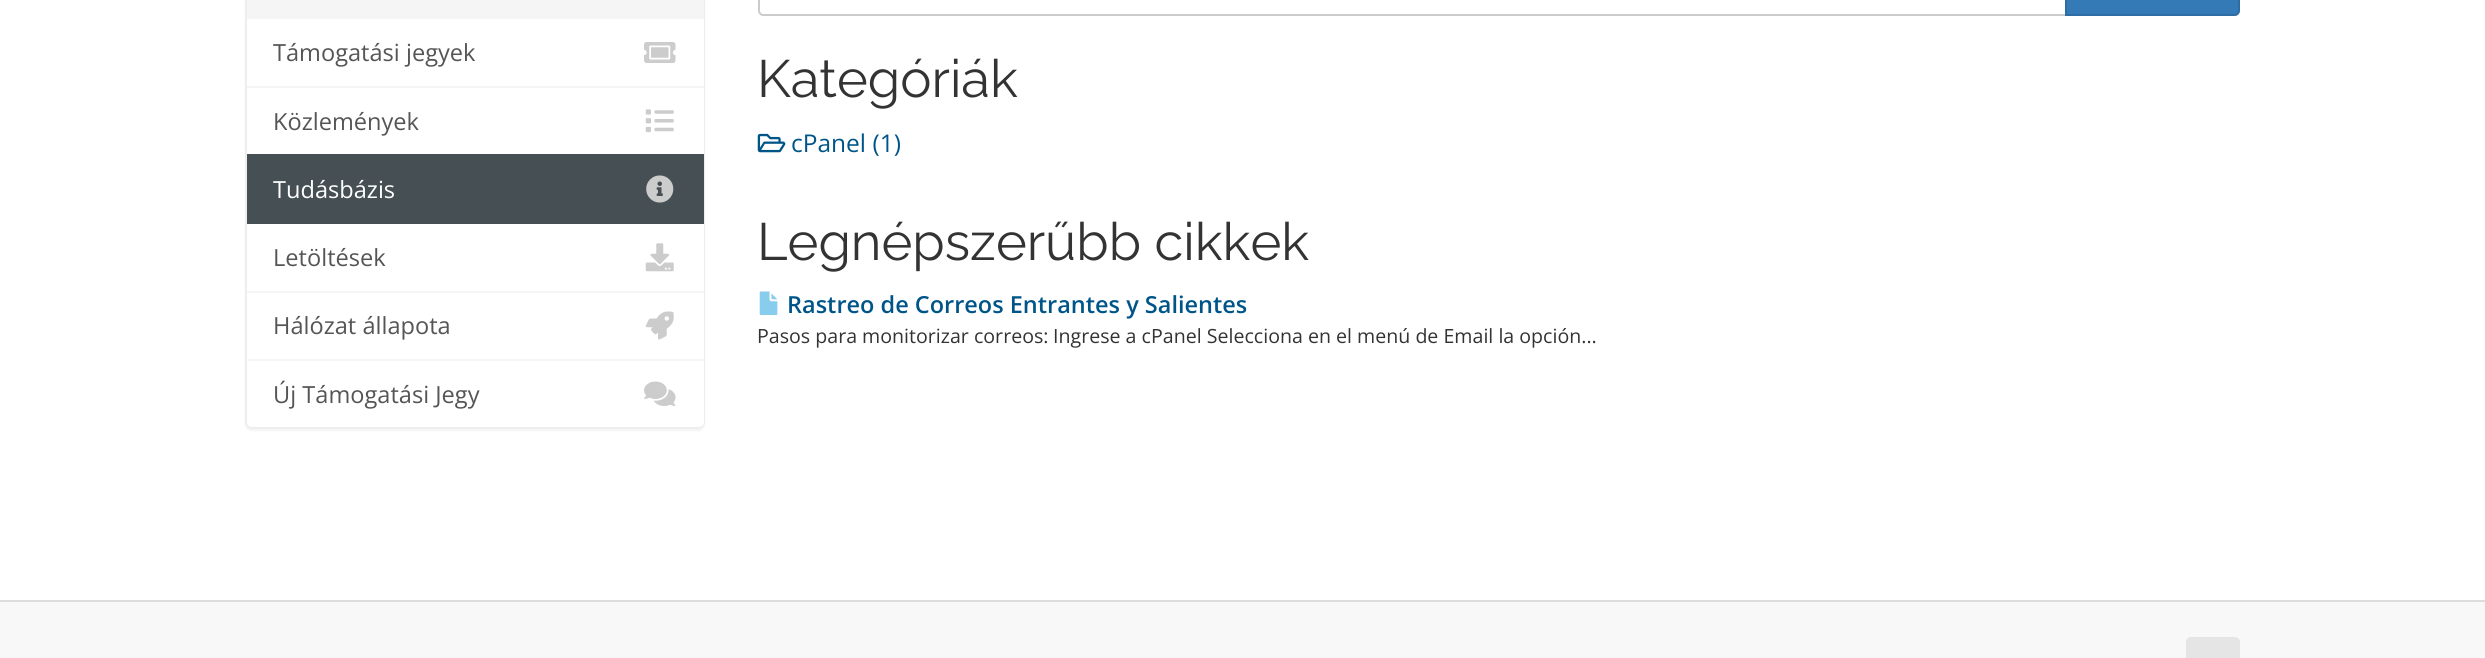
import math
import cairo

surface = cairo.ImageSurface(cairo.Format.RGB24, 2485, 658)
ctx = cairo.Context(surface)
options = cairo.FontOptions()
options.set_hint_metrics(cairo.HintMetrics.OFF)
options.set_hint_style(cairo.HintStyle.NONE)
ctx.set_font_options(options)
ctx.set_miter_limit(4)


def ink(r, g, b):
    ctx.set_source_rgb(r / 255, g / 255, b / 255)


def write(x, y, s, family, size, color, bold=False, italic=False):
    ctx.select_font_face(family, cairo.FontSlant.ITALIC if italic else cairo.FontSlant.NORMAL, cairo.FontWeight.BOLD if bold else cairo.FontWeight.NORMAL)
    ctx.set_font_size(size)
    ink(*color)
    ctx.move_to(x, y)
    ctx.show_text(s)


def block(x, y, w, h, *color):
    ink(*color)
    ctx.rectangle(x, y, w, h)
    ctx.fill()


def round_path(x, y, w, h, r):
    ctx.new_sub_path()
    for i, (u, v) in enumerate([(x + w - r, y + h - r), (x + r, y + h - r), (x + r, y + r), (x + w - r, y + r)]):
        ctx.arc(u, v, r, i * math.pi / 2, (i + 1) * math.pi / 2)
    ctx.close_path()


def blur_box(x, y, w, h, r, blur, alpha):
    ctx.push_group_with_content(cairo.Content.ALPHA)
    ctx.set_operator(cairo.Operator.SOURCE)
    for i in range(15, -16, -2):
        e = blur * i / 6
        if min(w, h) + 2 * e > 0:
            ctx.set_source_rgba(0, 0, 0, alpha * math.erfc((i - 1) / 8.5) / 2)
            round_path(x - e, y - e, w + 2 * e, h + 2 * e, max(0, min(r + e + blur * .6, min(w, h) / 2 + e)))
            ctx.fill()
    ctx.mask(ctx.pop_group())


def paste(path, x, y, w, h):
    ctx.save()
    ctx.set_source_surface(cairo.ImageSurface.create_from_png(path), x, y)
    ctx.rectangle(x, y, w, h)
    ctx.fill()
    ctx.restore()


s1 = dict(family="Open Sans", size=23.6, color=(85, 85, 85))
s2 = dict(family="Open Sans", size=23.6, color=(255, 255, 255))
s3 = dict(family="Raleway", size=52.5, color=(51, 51, 51))
s4 = dict(family="Open Sans", size=24.5, color=(0, 85, 136))
s5 = dict(family="Open Sans SemiBold", size=23.5, color=(0, 85, 136))
s6 = dict(family="Open Sans", size=19.6, color=(51, 51, 51))

ink(248, 248, 248)
ctx.paint()
block(0, 0, 2485, 600, 255, 255, 255)
ink(0, 0, 0)
blur_box(245, -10, 460, 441, 7, 1, 0.05)
round_path(246, -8, 458, 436, 6)
ink(238, 238, 238)
ctx.stroke()
block(247, 0, 457, 19, 245, 245, 245)
block(247, 19, 457, 67, 255, 255, 255)
block(247, 86, 457, 2, 245, 245, 245)
write(273, 61, "Támogatási jegyek", **s1)
paste("pic1.png", 644, 42, 32, 21)
block(247, 88, 457, 66, 255, 255, 255)
write(273, 130, "Közlemények", **s1)
paste("pic2.png", 645, 109, 29, 24)
block(247, 154, 457, 70, 70, 80, 84)
write(273, 198, "Tudásbázis", **s2)
paste("pic3.png", 646, 175, 28, 28)
block(247, 224, 457, 67, 255, 255, 255)
write(273, 266, "Letöltések", **s1)
paste("pic4.png", 645, 243, 29, 29)
block(247, 293, 457, 66, 255, 255, 255)
block(247, 291, 457, 2, 245, 245, 245)
write(273, 334, "Hálózat állapota", **s1)
paste("pic5.png", 645, 311, 29, 29)
ink(255, 255, 255)
ctx.new_path()
ctx.move_to(247, 359)
ctx.line_to(704, 359)
ctx.line_to(704, 422)
ctx.curve_to(704, 425, 702, 427, 699, 427)
ctx.line_to(252, 427)
ctx.curve_to(249, 427, 247, 425, 247, 422)
ctx.close_path()
ctx.fill()
block(247, 359, 457, 2, 245, 245, 245)
write(273, 403, "Új Támogatási Jegy", **s1)
paste("pic6.png", 644, 381, 32, 25)
ctx.new_path()
ctx.move_to(763, -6)
ctx.line_to(2066, -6)
ctx.line_to(2066, 15)
ctx.line_to(763, 15)
ctx.curve_to(761, 15, 759, 13, 759, 11)
ctx.line_to(759, -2)
ctx.curve_to(759, -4, 761, -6, 763, -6)
ctx.close_path()
ink(204, 204, 204)
ctx.stroke()
ink(51, 122, 183)
ctx.new_path()
ctx.move_to(2066, -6)
ctx.line_to(2235, -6)
ctx.curve_to(2237, -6, 2239, -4, 2239, -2)
ctx.line_to(2239, 11)
ctx.curve_to(2239, 13, 2237, 15, 2235, 15)
ctx.line_to(2066, 15)
ctx.close_path()
ctx.fill_preserve()
ink(46, 109, 164)
ctx.stroke()
write(757, 97, "Kategóriák", **s3)
paste("pic7.png", 757, 133, 29, 20)
write(791, 152, "cPanel (1)", **s4)
write(757, 260, "Legnépszerűbb cikkek", **s3)
paste("pic8.png", 759, 291, 19, 24)
write(787, 313, "Rastreo de Correos Entrantes y Salientes", **s5)
write(757, 343, "Pasos para monitorizar correos:", **s6)
write(1053, 343, "Ingrese a cPanel Selecciona en el menú de Email la opción...", **s6)
block(0, 600, 2485, 2, 221, 221, 221)
ink(229, 229, 229)
round_path(2186, 637, 54, 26, 5)
ctx.fill()
surface.write_to_png("screenshot.png")
